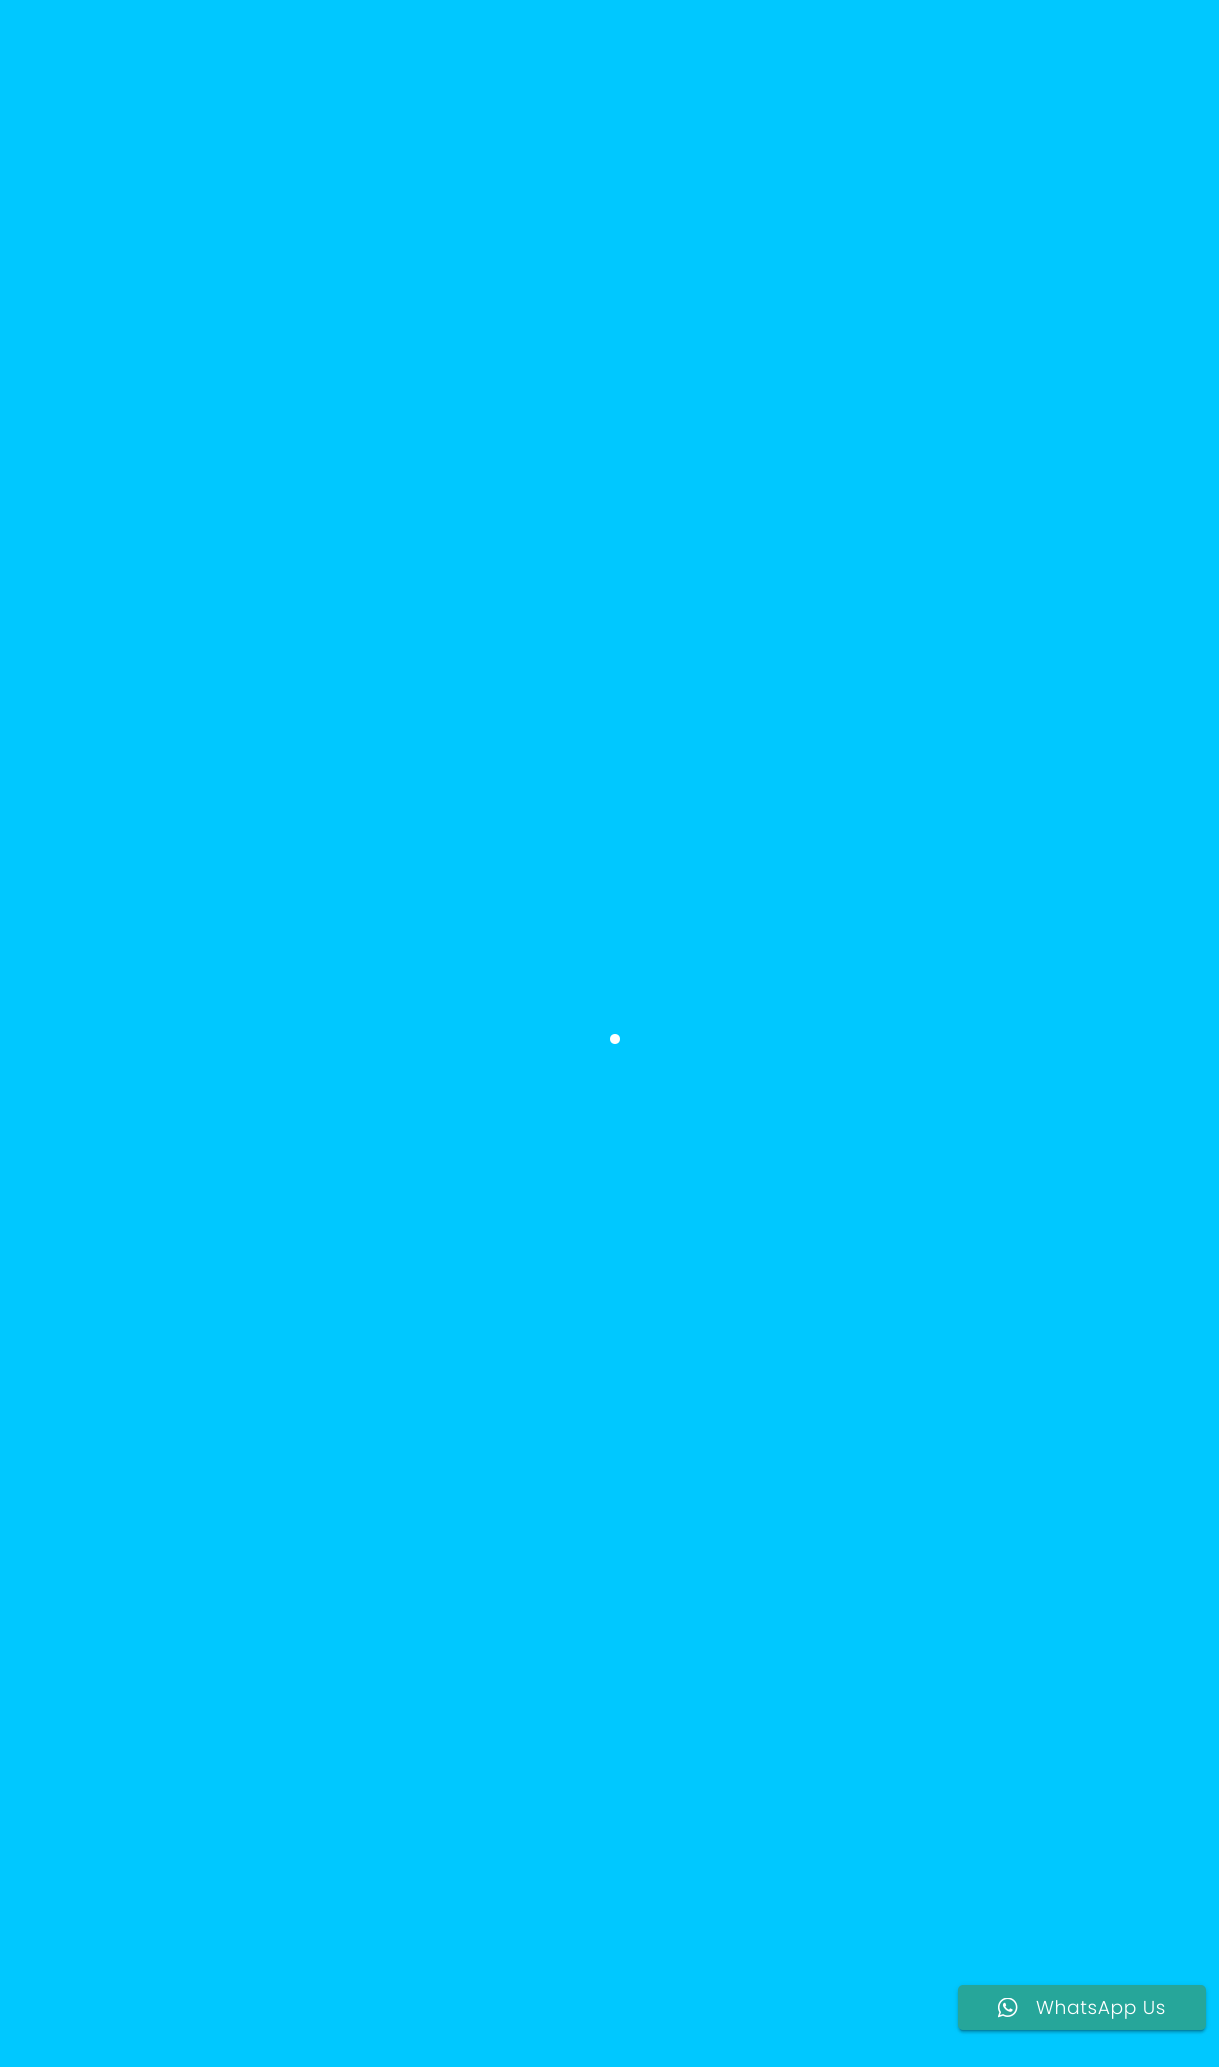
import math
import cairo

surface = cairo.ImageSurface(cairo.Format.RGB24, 1219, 2067)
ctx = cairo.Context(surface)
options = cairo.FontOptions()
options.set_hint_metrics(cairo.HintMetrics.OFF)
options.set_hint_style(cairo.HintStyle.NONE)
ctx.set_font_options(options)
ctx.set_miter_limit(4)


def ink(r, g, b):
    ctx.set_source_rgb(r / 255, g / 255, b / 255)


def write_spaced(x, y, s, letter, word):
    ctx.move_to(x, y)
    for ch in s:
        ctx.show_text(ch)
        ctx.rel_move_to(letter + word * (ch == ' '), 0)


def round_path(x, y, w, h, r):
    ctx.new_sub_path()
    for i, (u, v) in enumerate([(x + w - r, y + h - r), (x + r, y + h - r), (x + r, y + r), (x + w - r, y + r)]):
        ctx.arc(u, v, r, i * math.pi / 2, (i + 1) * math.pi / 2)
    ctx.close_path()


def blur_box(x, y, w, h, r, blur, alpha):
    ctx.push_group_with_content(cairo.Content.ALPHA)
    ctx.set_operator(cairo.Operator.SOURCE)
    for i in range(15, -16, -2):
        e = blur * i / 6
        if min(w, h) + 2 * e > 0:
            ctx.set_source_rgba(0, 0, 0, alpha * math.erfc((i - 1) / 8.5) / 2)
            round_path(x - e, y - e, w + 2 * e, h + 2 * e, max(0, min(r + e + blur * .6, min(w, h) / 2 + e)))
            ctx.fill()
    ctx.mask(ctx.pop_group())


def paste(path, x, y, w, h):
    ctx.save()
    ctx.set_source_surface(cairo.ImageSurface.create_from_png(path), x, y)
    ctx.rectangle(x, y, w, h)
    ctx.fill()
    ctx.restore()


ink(0, 200, 255)
ctx.paint()
ink(255, 255, 255)
ctx.arc(615, 1039, 5, 0, 2 * math.pi)
ctx.fill()
ink(0, 0, 0)
blur_box(960, 1991, 244, 40, 2.5, 0.5, 0.2)
blur_box(958, 1986, 248, 45, 5, 3, 0.12)
blur_box(958, 1988, 248, 45, 5, 1, 0.14)
ink(38, 166, 154)
round_path(958, 1985, 248, 45, 5)
ctx.fill()
paste("pic1.png", 998, 1998, 20, 20)
ctx.select_font_face("Poppins Light")
ctx.set_font_size(18.75)
ink(255, 255, 255)
write_spaced(1036, 2014, "WhatsApp Us", 0.6, 0)
surface.write_to_png("screenshot.png")
